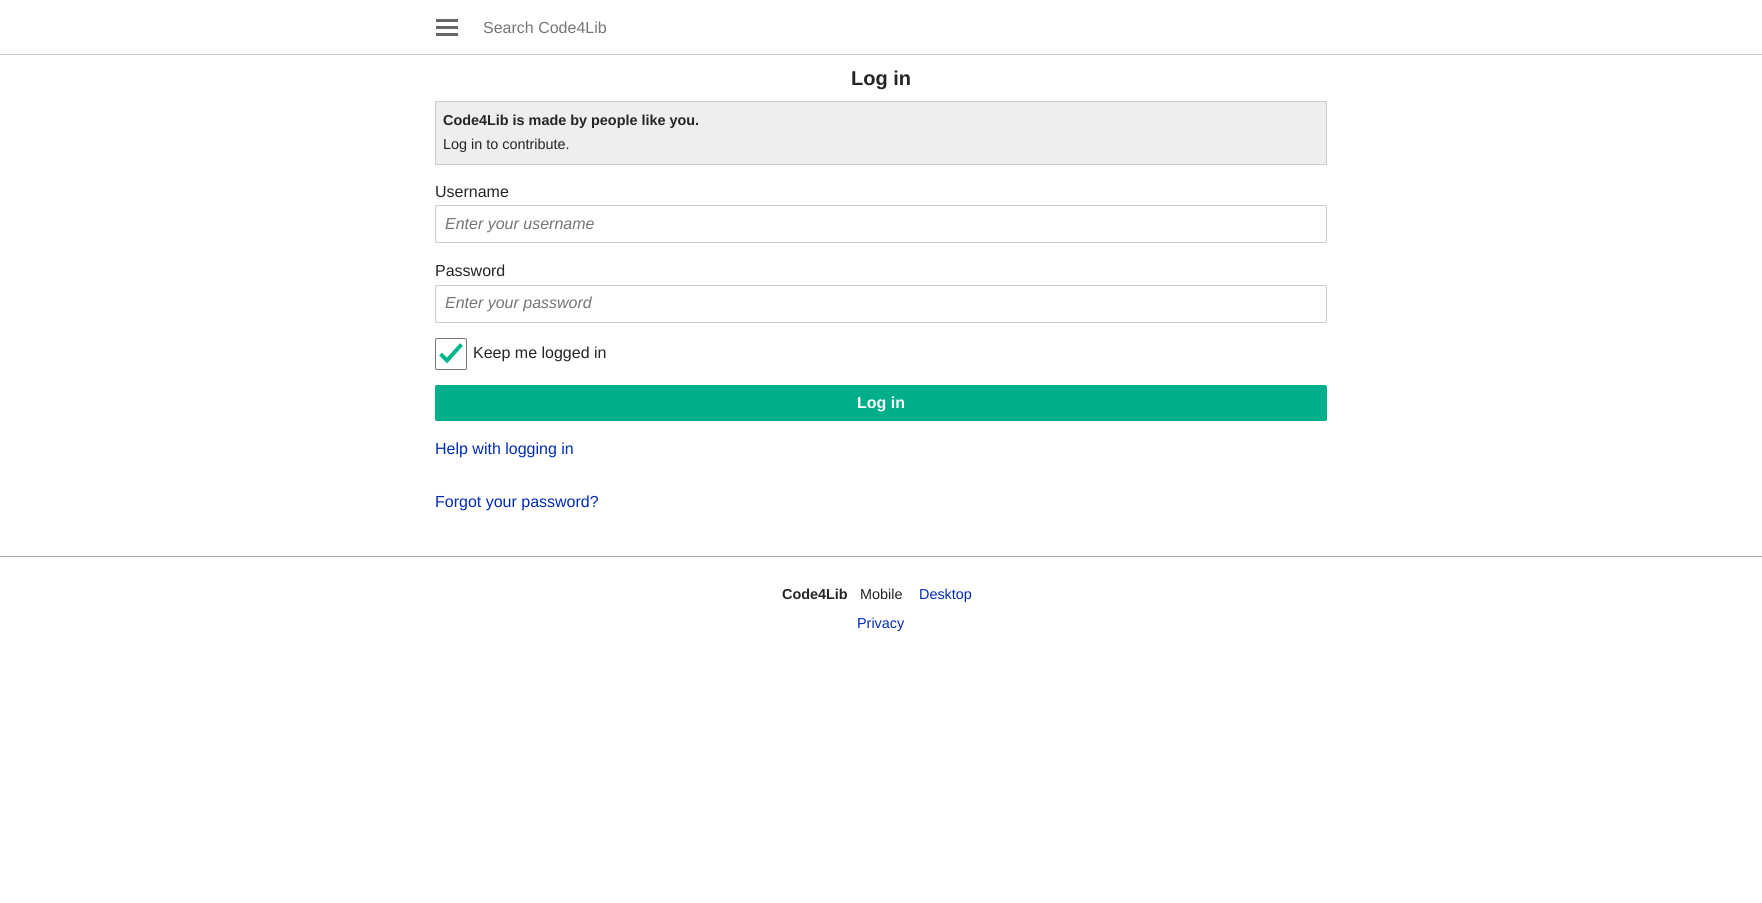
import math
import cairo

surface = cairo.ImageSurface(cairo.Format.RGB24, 1762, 903)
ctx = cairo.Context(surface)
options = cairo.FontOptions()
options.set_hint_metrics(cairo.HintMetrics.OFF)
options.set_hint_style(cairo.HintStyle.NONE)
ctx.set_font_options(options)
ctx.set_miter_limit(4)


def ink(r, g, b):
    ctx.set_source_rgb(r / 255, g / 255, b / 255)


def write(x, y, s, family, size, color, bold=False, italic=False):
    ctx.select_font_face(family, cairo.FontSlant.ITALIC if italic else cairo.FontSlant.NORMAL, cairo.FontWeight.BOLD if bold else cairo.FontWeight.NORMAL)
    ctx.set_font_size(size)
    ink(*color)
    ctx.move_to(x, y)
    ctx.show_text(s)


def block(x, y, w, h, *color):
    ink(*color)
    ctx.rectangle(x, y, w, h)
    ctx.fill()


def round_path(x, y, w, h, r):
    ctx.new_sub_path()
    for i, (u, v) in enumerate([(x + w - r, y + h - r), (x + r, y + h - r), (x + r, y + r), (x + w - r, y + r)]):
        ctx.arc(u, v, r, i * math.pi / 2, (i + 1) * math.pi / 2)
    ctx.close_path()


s1 = dict(family="Liberation Sans", size=16, color=(117, 117, 117))
s2 = dict(family="Liberation Sans", size=20, color=(37, 37, 37), bold=True)
s3 = dict(family="Liberation Sans", size=14.4, color=(37, 37, 37), bold=True)
s4 = dict(family="Liberation Sans", size=14.4, color=(37, 37, 37))
s5 = dict(family="Liberation Sans", size=16, color=(37, 37, 37))
s6 = dict(family="Liberation Sans", size=16, color=(117, 117, 117), italic=True)
s7 = dict(family="Liberation Sans", size=16, color=(255, 255, 255), bold=True)
s8 = dict(family="Liberation Sans", size=16, color=(0, 43, 184))
s9 = dict(family="Liberation Sans", size=14.4, color=(0, 43, 184))

ink(255, 255, 255)
ctx.paint()
block(436, 33, 22, 3, 103, 103, 103)
block(436, 26, 22, 3, 103, 103, 103)
block(436, 19, 22, 3, 103, 103, 103)
write(483, 33, "Search Code4Lib", **s1)
block(0, 54, 1762, 1, 204, 204, 204)
write(851, 85, "Log in", **s2)
ink(238, 238, 238)
ctx.rectangle(435.5, 101.5, 891, 63)
ctx.fill_preserve()
ink(204, 204, 204)
ctx.set_line_width(1)
ctx.stroke()
write(443, 125, "Code4Lib is made by people like you.", **s3)
write(443, 149, "Log in to contribute.", **s4)
write(435, 197, "Username", **s5)
round_path(435.5, 205.5, 891, 37, 1.5)
ink(204, 204, 204)
ctx.stroke()
write(445, 229, "Enter your username", **s6)
write(435, 276, "Password", **s5)
round_path(435.5, 285.5, 891, 37, 1.5)
ink(204, 204, 204)
ctx.stroke()
write(445, 308, "Enter your password", **s6)
ctx.new_path()
ctx.move_to(440.5, 354)
ctx.line_to(447, 360.5)
ctx.line_to(461.5, 344.5)
ink(0, 183, 140)
ctx.set_line_width(4)
ctx.stroke()
round_path(435.5, 338.5, 31, 31, 1.5)
ink(119, 119, 119)
ctx.set_line_width(1)
ctx.stroke()
write(473, 358, "Keep me logged in", **s5)
ink(0, 175, 137)
round_path(435.5, 385.5, 891, 35, 1.5)
ctx.fill_preserve()
ctx.stroke()
write(857, 408, "Log in", **s7)
write(435, 454, "Help with logging in", **s8)
write(435, 507, "Forgot your password?", **s8)
block(0, 556, 1762, 1, 170, 170, 170)
write(782, 599, "Code4Lib", **s3)
write(860, 599, "Mobile", **s4)
write(919, 599, "Desktop", **s9)
write(857, 628, "Privacy", **s9)
surface.write_to_png("screenshot.png")
